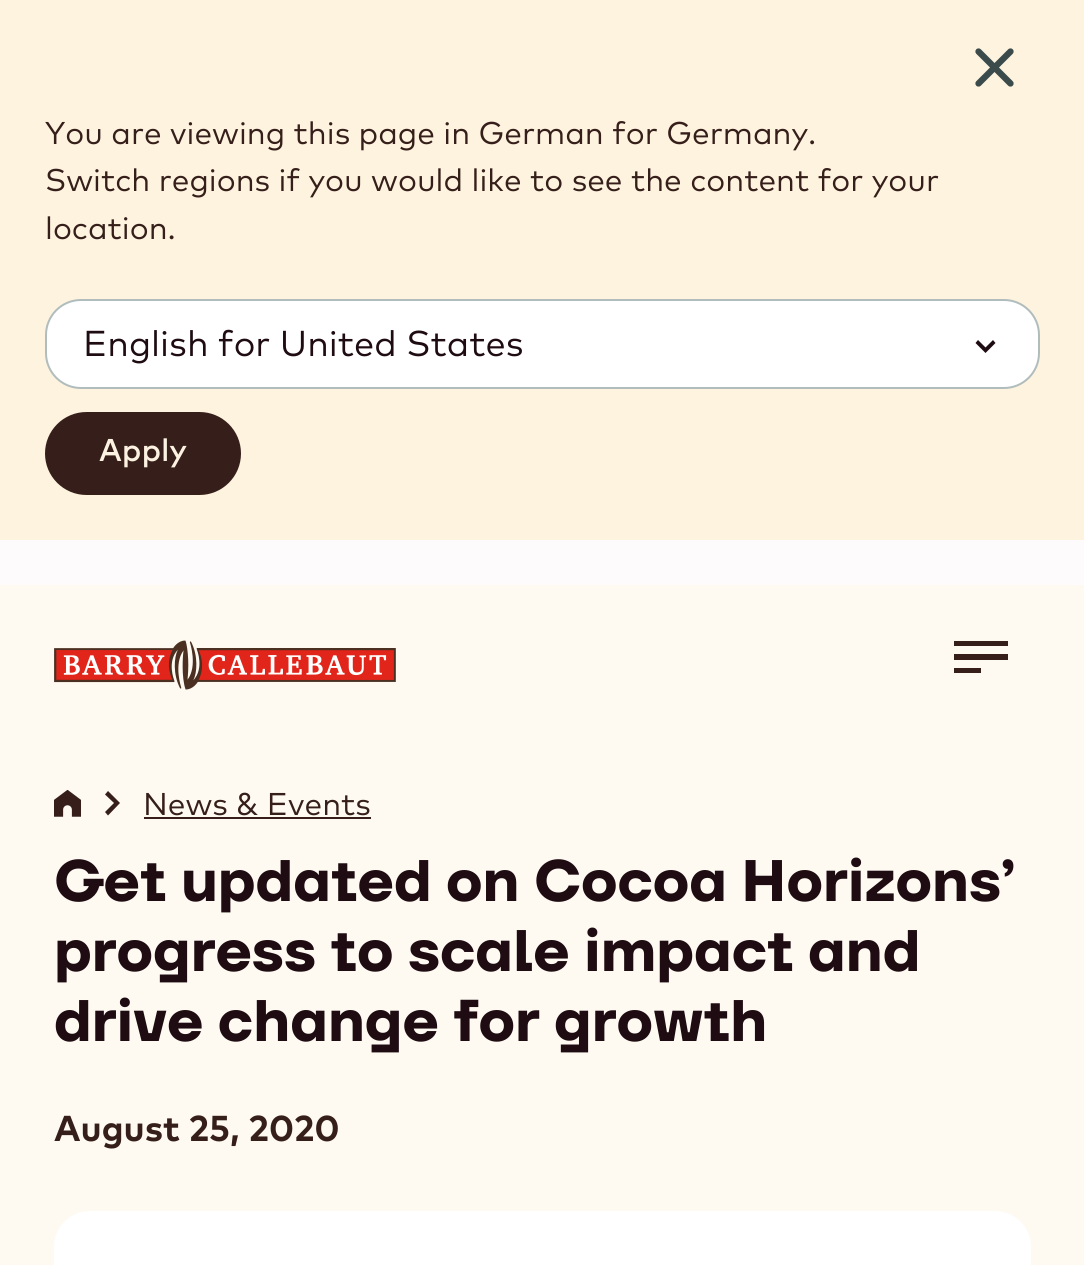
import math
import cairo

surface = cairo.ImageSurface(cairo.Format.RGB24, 1084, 1265)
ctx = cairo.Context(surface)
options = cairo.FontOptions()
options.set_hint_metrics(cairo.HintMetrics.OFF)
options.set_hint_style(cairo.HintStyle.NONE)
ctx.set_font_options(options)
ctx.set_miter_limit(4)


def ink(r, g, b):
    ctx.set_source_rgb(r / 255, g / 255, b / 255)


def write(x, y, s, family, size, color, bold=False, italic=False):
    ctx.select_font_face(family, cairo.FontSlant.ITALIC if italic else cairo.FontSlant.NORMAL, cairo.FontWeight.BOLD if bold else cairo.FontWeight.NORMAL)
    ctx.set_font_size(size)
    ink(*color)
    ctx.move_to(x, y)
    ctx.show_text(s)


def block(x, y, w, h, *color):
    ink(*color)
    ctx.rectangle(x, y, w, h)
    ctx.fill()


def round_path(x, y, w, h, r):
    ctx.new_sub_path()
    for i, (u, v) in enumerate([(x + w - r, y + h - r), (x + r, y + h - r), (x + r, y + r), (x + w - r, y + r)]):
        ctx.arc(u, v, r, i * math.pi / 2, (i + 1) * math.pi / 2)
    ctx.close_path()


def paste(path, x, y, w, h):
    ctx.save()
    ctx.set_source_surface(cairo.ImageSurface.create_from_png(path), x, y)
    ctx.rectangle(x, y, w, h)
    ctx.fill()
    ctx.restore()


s1 = dict(family="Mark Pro", size=31.5, color=(54, 31, 26))
s2 = dict(family="Mark Pro", size=36, color=(30, 12, 18))
s3 = dict(family="Mark Pro Medium", size=31.5, color=(252, 242, 225))
s4 = dict(family="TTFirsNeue", size=58.5, color=(30, 12, 18), bold=True)
s5 = dict(family="Mark Pro", size=36, color=(54, 31, 26), bold=True)

ink(253, 251, 251)
ctx.paint()
block(0, 0, 1084, 540, 253, 243, 223)
paste("pic1.png", 975, 48, 39, 39)
write(45, 144, "You are viewing this page in German for Germany.", **s1)
write(45, 191, "Switch regions if you would like to see the content for your", **s1)
write(45, 239, "location.", **s1)
ink(255, 255, 255)
round_path(46, 300, 993, 88, 35)
ctx.fill_preserve()
ink(177, 188, 189)
ctx.stroke()
write(83, 356, "English for United States", **s2)
ctx.new_path()
ctx.move_to(978, 340)
ctx.line_to(985.5, 347.5)
ctx.line_to(993, 340)
ctx.line_to(995.5, 343)
ctx.line_to(985.5, 353)
ctx.line_to(975.5, 343)
ctx.close_path()
ctx.fill()
ink(54, 31, 26)
round_path(45, 412, 196, 83, 41.5)
ctx.fill()
write(99, 461, "Apply", **s3)
block(0, 585, 1084, 680, 254, 250, 242)
paste("pic2.png", 54, 640, 342, 50)
ink(54, 31, 26)
ctx.new_path()
ctx.move_to(954, 641)
ctx.line_to(1008, 641)
ctx.line_to(1008, 646)
ctx.line_to(954, 646)
ctx.close_path()
ctx.move_to(954, 654)
ctx.line_to(1008, 654)
ctx.line_to(1008, 660)
ctx.line_to(954, 660)
ctx.close_path()
ctx.move_to(981, 668)
ctx.line_to(954, 668)
ctx.line_to(954, 673)
ctx.line_to(981, 673)
ctx.close_path()
ctx.fill()
paste("pic3.png", 54, 790, 27, 27)
ctx.new_path()
ctx.move_to(105, 812)
ctx.line_to(114, 803)
ctx.line_to(105, 794.5)
ctx.line_to(108, 791)
ctx.line_to(120, 803)
ctx.line_to(108, 815.5)
ctx.close_path()
ctx.fill()
write(143, 815, "News & Events", **s1)
block(144, 817, 227, 2, 54, 31, 26)
write(54, 901, "Get updated on Cocoa Horizons’", **s4)
write(54, 971, "progress to scale impact and", **s4)
write(54, 1041, "drive change for growth", **s4)
write(54, 1141, "August 25, 2020", **s5)
ink(255, 255, 255)
round_path(54, 1211, 977, 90, 36)
ctx.fill()
surface.write_to_png("screenshot.png")
